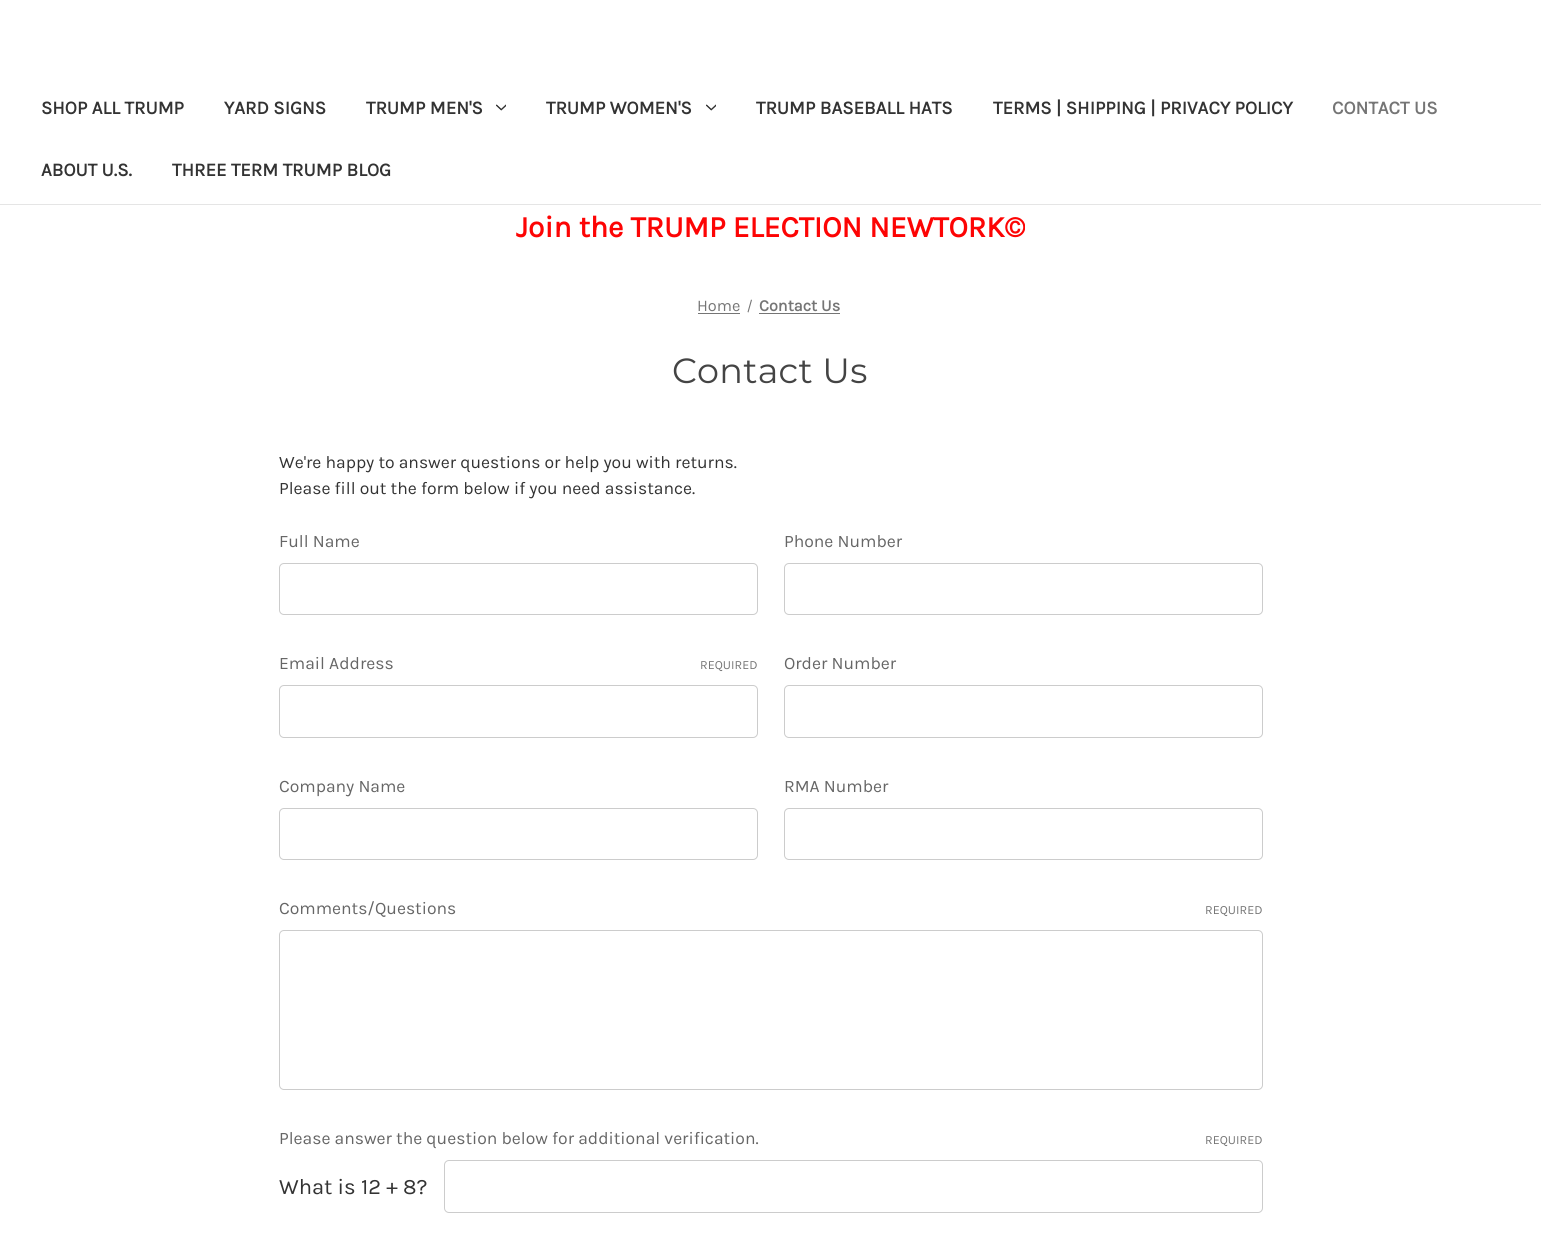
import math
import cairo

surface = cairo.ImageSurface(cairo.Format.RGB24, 1541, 1234)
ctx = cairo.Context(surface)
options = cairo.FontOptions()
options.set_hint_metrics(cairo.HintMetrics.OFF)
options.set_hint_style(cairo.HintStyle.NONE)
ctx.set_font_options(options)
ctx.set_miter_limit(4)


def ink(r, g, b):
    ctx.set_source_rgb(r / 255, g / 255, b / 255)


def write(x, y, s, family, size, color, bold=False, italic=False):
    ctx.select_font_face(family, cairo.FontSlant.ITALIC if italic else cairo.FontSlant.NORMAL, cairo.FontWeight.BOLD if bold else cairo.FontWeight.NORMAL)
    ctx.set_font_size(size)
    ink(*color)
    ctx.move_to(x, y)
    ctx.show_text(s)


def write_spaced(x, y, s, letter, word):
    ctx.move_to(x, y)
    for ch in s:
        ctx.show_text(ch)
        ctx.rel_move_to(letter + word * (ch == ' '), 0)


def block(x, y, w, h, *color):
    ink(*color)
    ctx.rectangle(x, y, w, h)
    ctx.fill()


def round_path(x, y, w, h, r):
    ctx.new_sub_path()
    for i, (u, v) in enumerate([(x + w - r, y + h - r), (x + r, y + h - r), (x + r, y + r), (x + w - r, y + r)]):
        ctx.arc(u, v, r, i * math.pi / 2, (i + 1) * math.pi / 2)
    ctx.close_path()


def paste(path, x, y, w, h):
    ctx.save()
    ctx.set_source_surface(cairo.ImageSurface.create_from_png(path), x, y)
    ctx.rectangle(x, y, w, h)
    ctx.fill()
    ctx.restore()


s1 = dict(family="Karla", size=18.75, color=(51, 51, 51), bold=True)
s2 = dict(family="Karla", size=18.75, color=(117, 117, 117), bold=True)
s3 = dict(family="Karla", size=30, color=(253, 4, 4), bold=True)
s4 = dict(family="Karla", size=16.25, color=(117, 117, 117))
s5 = dict(family="Karla", size=16.25, color=(117, 117, 117), bold=True)
s6 = dict(family="Karla", size=17.5, color=(51, 51, 51))
s7 = dict(family="Karla", size=17.5, color=(102, 102, 102))
s8 = dict(family="Karla", size=12.5, color=(117, 117, 117))
s9 = dict(family="Karla", size=22, color=(51, 51, 51))

ink(255, 255, 255)
ctx.paint()
block(0, 204, 1541, 1, 229, 229, 229)
write(41, 114, "SHOP ALL TRUMP", **s1)
write(224, 114, "YARD SIGNS", **s1)
write(366, 114, "TRUMP MEN'S", **s1)
paste("pic1.png", 496, 104, 10, 7)
write(546, 114, "TRUMP WOMEN'S", **s1)
paste("pic1.png", 706, 104, 10, 7)
write(756, 114, "TRUMP BASEBALL HATS", **s1)
write(993, 114, "TERMS | SHIPPING | PRIVACY POLICY", **s1)
write(1332, 114, "CONTACT US", **s2)
write(41, 176, "ABOUT U.S.", **s1)
write(172, 176, "THREE TERM TRUMP BLOG", **s1)
write(516, 237, "Join the TRUMP ELECTION NEWTORK©", **s3)
write(697, 311, "Home", **s4)
block(698, 313, 42, 1, 117, 117, 117)
ctx.new_path()
ctx.move_to(751, 299.5)
ctx.line_to(752, 300)
ctx.line_to(748.5, 312.5)
ctx.line_to(747.5, 312)
ctx.close_path()
ctx.fill()
write(759, 311, "Contact Us", **s5)
block(759, 313, 81, 1, 117, 117, 117)
ctx.select_font_face("Montserrat Thin")
ctx.set_font_size(35)
ink(68, 68, 68)
write_spaced(672, 383, "Contact Us", 0.25, 0)
write(279, 468, "We're happy to answer questions or help you with returns.", **s6)
write(279, 494, "Please fill out the form below if you need assistance.", **s6)
write(279, 547, "Full Name", **s7)
round_path(279.5, 563.5, 478, 51, 4.5)
ink(204, 204, 204)
ctx.set_line_width(1)
ctx.stroke()
write(784, 547, "Phone Number", **s7)
round_path(784.5, 563.5, 478, 51, 4.5)
ink(204, 204, 204)
ctx.stroke()
write(279, 669, "Email Address", **s7)
write(700, 669, "REQUIRED", **s8)
round_path(279.5, 685.5, 478, 52, 4.5)
ink(204, 204, 204)
ctx.stroke()
write(784, 669, "Order Number", **s7)
round_path(784.5, 685.5, 478, 52, 4.5)
ink(204, 204, 204)
ctx.stroke()
write(279, 792, "Company Name", **s7)
round_path(279.5, 808.5, 478, 51, 4.5)
ink(204, 204, 204)
ctx.stroke()
write(784, 792, "RMA Number", **s7)
round_path(784.5, 808.5, 478, 51, 4.5)
ink(204, 204, 204)
ctx.stroke()
write(279, 914, "Comments/Questions", **s7)
write(1205, 914, "REQUIRED", **s8)
round_path(279.5, 930.5, 983, 159, 4.5)
ink(204, 204, 204)
ctx.stroke()
write(279, 1144, "Please answer the question below for additional verification.", **s7)
write(1205, 1144, "REQUIRED", **s8)
write(279, 1194, "What is 12 + 8?", **s9)
round_path(444.5, 1160.5, 818, 52, 4.5)
ink(204, 204, 204)
ctx.stroke()
surface.write_to_png("screenshot.png")
